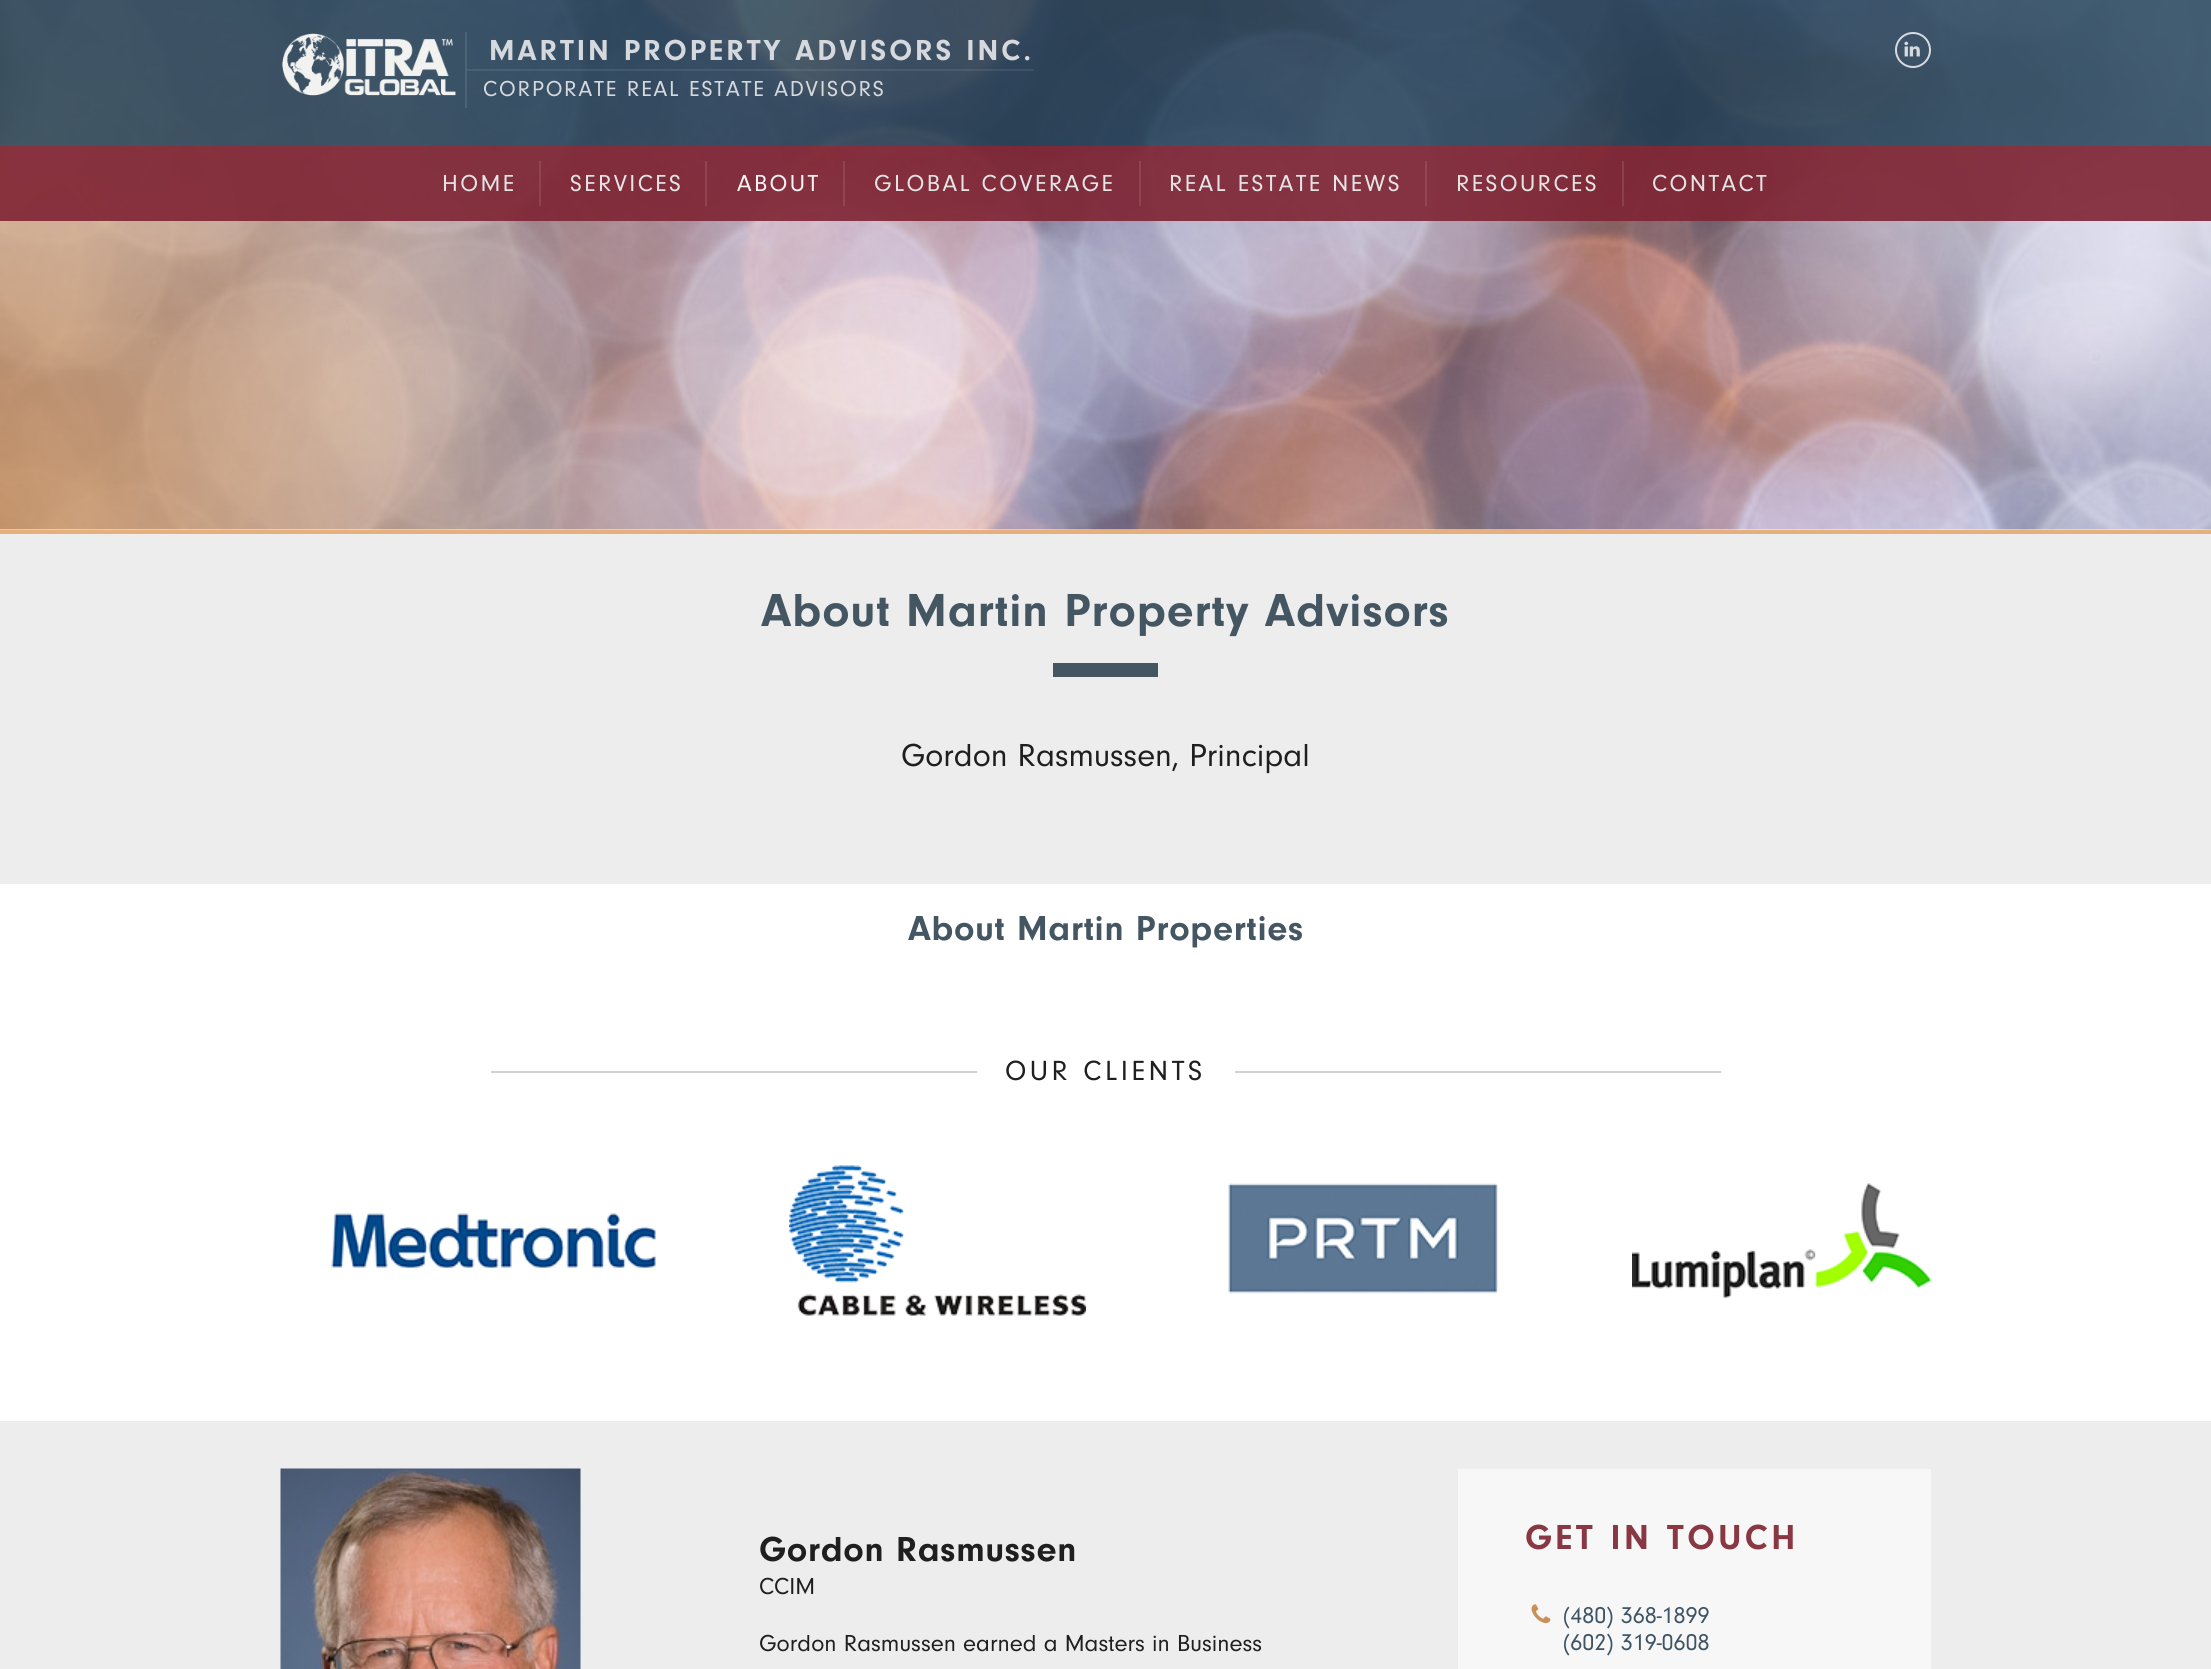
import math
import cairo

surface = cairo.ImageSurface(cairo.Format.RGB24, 2211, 1669)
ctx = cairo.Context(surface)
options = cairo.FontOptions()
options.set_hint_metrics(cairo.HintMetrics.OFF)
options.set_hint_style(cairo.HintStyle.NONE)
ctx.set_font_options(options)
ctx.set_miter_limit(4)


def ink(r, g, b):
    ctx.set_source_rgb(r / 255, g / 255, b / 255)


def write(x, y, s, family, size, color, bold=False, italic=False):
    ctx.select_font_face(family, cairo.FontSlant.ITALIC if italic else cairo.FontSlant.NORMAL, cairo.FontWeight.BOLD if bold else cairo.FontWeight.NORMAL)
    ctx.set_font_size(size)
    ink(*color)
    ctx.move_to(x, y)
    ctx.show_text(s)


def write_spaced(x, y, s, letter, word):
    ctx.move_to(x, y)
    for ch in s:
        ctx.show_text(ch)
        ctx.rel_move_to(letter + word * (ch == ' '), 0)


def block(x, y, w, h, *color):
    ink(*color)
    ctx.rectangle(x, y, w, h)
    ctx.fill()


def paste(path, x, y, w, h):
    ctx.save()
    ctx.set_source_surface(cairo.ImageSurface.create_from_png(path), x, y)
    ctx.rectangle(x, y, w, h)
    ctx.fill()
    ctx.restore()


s1 = dict(family="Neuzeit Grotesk", size=33, color=(31, 31, 31))
s2 = dict(family="Neuzeit Grotesk", size=24, color=(31, 31, 31))
s3 = dict(family="Neuzeit Grotesk", size=24, color=(62, 84, 100))

ink(252, 252, 252)
ctx.paint()
block(0, 530, 2211, 4, 229, 175, 126)
paste("pic1.png", 0, 0, 2211, 530)
ctx.set_source_rgba(0.11, 0.235, 0.325, 0.8)
ctx.rectangle(0, 0, 2211, 146)
ctx.fill()
paste("pic2.png", 282, 33, 174, 63)
block(465, 32, 2, 76, 78, 99, 118)
ctx.set_source_rgba(1, 1, 1, 0.08)
ctx.rectangle(467, 69, 567, 2)
ctx.fill()
ctx.select_font_face("Neuzeit Grotesk", cairo.FontSlant.NORMAL, cairo.FontWeight.BOLD)
ctx.set_font_size(30)
ink(213, 217, 221)
write_spaced(489, 60, "MARTIN PROPERTY ADVISORS INC.", 3, 0)
ctx.select_font_face("Neuzeit Grotesk")
ctx.set_font_size(22.5)
write_spaced(483, 96, "CORPORATE REAL ESTATE ADVISORS", 1.8, 0)
ctx.new_path()
ctx.arc(1913, 50, 17, 0, 2 * math.pi)
ctx.set_source_rgba(0.988, 0.988, 0.988, 0.8)
ctx.stroke()
paste("pic3.png", 1904, 41, 16, 16)
ctx.set_source_rgba(0.498, 0.141, 0.2, 0.9)
ctx.rectangle(0, 146, 2211, 75)
ctx.fill()
ctx.set_source_rgba(1, 1, 1, 0.1)
ctx.rectangle(539, 161, 2, 45)
ctx.fill()
ctx.set_font_size(24)
ink(228, 228, 228)
write_spaced(442, 191, "HOME", 2.4, 0)
block(705, 161, 2, 45, 144, 68, 81)
ink(228, 228, 228)
write_spaced(570, 191, "SERVICES", 2.4, 0)
ctx.set_source_rgba(1, 1, 1, 0.1)
ctx.rectangle(843, 161, 2, 45)
ctx.fill()
ink(244, 244, 244)
write_spaced(737, 191, "ABOUT", 2.4, 0)
block(1139, 161, 2, 45, 142, 68, 83)
ink(228, 228, 228)
write_spaced(874, 191, "GLOBAL COVERAGE", 2.4, 0)
block(1425, 161, 2, 45, 146, 71, 85)
ink(228, 228, 228)
write_spaced(1169, 191, "REAL ESTATE NEWS", 2.4, 0)
block(1622, 161, 2, 45, 140, 63, 76)
ink(228, 228, 228)
write_spaced(1456, 191, "RESOURCES", 2.4, 0)
write_spaced(1652, 191, "CONTACT", 2.4, 0)
block(0, 534, 2211, 350, 237, 237, 237)
ctx.select_font_face("Neuzeit Grotesk", cairo.FontSlant.NORMAL, cairo.FontWeight.BOLD)
ctx.set_font_size(48)
ink(69, 86, 99)
write_spaced(761, 626, "About Martin Property Advisors", 0.95, 0)
block(1053, 663, 105, 14, 69, 86, 99)
write(901, 766, "Gordon Rasmussen, Principal", **s1)
block(0, 884, 2211, 537, 255, 255, 255)
ctx.select_font_face("Neuzeit Grotesk", cairo.FontSlant.NORMAL, cairo.FontWeight.BOLD)
ctx.set_font_size(36)
ink(69, 86, 99)
write_spaced(908, 940, "About Martin Properties", 0.75, 0)
block(491, 1071, 486, 2, 210, 210, 210)
ctx.select_font_face("Neuzeit Grotesk")
ctx.set_font_size(28.75)
ink(31, 31, 31)
write_spaced(1005, 1080, "OUR CLIENTS", 3.5, 0)
block(1235, 1071, 486, 2, 210, 210, 210)
paste("pic4.png", 331, 1213, 325, 56)
paste("pic5.png", 789, 1165, 297, 151)
paste("pic6.png", 1228, 1183, 270, 111)
paste("pic7.png", 1632, 1183, 299, 115)
block(0, 1421, 2211, 248, 237, 237, 237)
paste("pic8.png", 280, 1468, 301, 201)
ctx.select_font_face("Neuzeit Grotesk", cairo.FontSlant.NORMAL, cairo.FontWeight.BOLD)
ctx.set_font_size(36)
ink(31, 31, 31)
write_spaced(759, 1561, "Gordon Rasmussen", 0.75, 0)
write(759, 1594, "CCIM", **s2)
write(759, 1651, "Gordon Rasmussen earned a Masters in Business", **s2)
block(1458, 1469, 473, 200, 247, 247, 247)
ctx.select_font_face("Neuzeit Grotesk", cairo.FontSlant.NORMAL, cairo.FontWeight.BOLD)
ctx.set_font_size(36)
ink(136, 55, 67)
write_spaced(1525, 1549, "GET IN TOUCH", 3.6, 0)
paste("pic9.png", 1531, 1604, 20, 20)
write(1563, 1623, "(480) 368-1899", **s3)
write(1563, 1650, "(602) 319-0608", **s3)
surface.write_to_png("screenshot.png")
